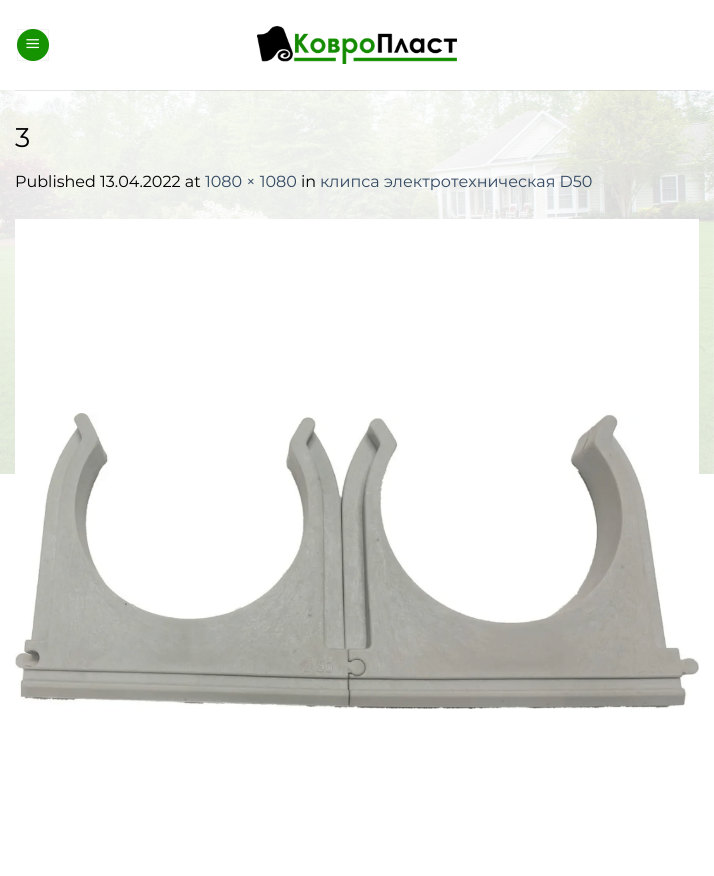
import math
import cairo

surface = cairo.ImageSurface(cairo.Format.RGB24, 714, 876)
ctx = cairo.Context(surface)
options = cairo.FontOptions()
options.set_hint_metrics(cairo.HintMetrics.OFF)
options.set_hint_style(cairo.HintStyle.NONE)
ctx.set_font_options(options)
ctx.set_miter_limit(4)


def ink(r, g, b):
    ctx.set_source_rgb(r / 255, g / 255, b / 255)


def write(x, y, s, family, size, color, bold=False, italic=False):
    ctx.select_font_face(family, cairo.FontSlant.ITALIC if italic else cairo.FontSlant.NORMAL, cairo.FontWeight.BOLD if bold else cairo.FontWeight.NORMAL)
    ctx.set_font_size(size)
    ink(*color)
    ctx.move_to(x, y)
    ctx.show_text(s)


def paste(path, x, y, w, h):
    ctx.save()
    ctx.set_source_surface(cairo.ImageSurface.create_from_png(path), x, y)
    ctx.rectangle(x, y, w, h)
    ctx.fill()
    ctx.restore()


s1 = dict(family="Montserrat", size=27, color=(0, 0, 0))
s2 = dict(family="Montserrat", size=16, color=(0, 0, 0))
s3 = dict(family="Montserrat", size=16, color=(51, 72, 98))

ink(255, 255, 255)
ctx.paint()
ink(21, 147, 1)
ctx.arc(33, 45, 16, 0, 2 * math.pi)
ctx.fill()
ctx.rectangle(17.5, 29.5, 31, 31)
ctx.set_source_rgba(0, 0, 0, 0.05)
ctx.set_line_width(1)
ctx.stroke()
paste("pic1.png", 26, 39, 13, 10)
paste("pic2.png", 257, 26, 200, 38)
paste("pic3.png", 0, 90, 714, 384)
ctx.set_source_rgba(0, 0, 0, 0.1)
ctx.rectangle(15, 90, 684, 1)
ctx.fill()
write(15, 147, "3", **s1)
write(15, 187, "Published 13.04.2022 at", **s2)
write(205, 187, "1080 × 1080", **s3)
write(301, 187, "in", **s2)
write(320, 187, "клипса электротехническая D50", **s3)
paste("pic4.png", 15, 219, 684, 490)
surface.write_to_png("screenshot.png")
